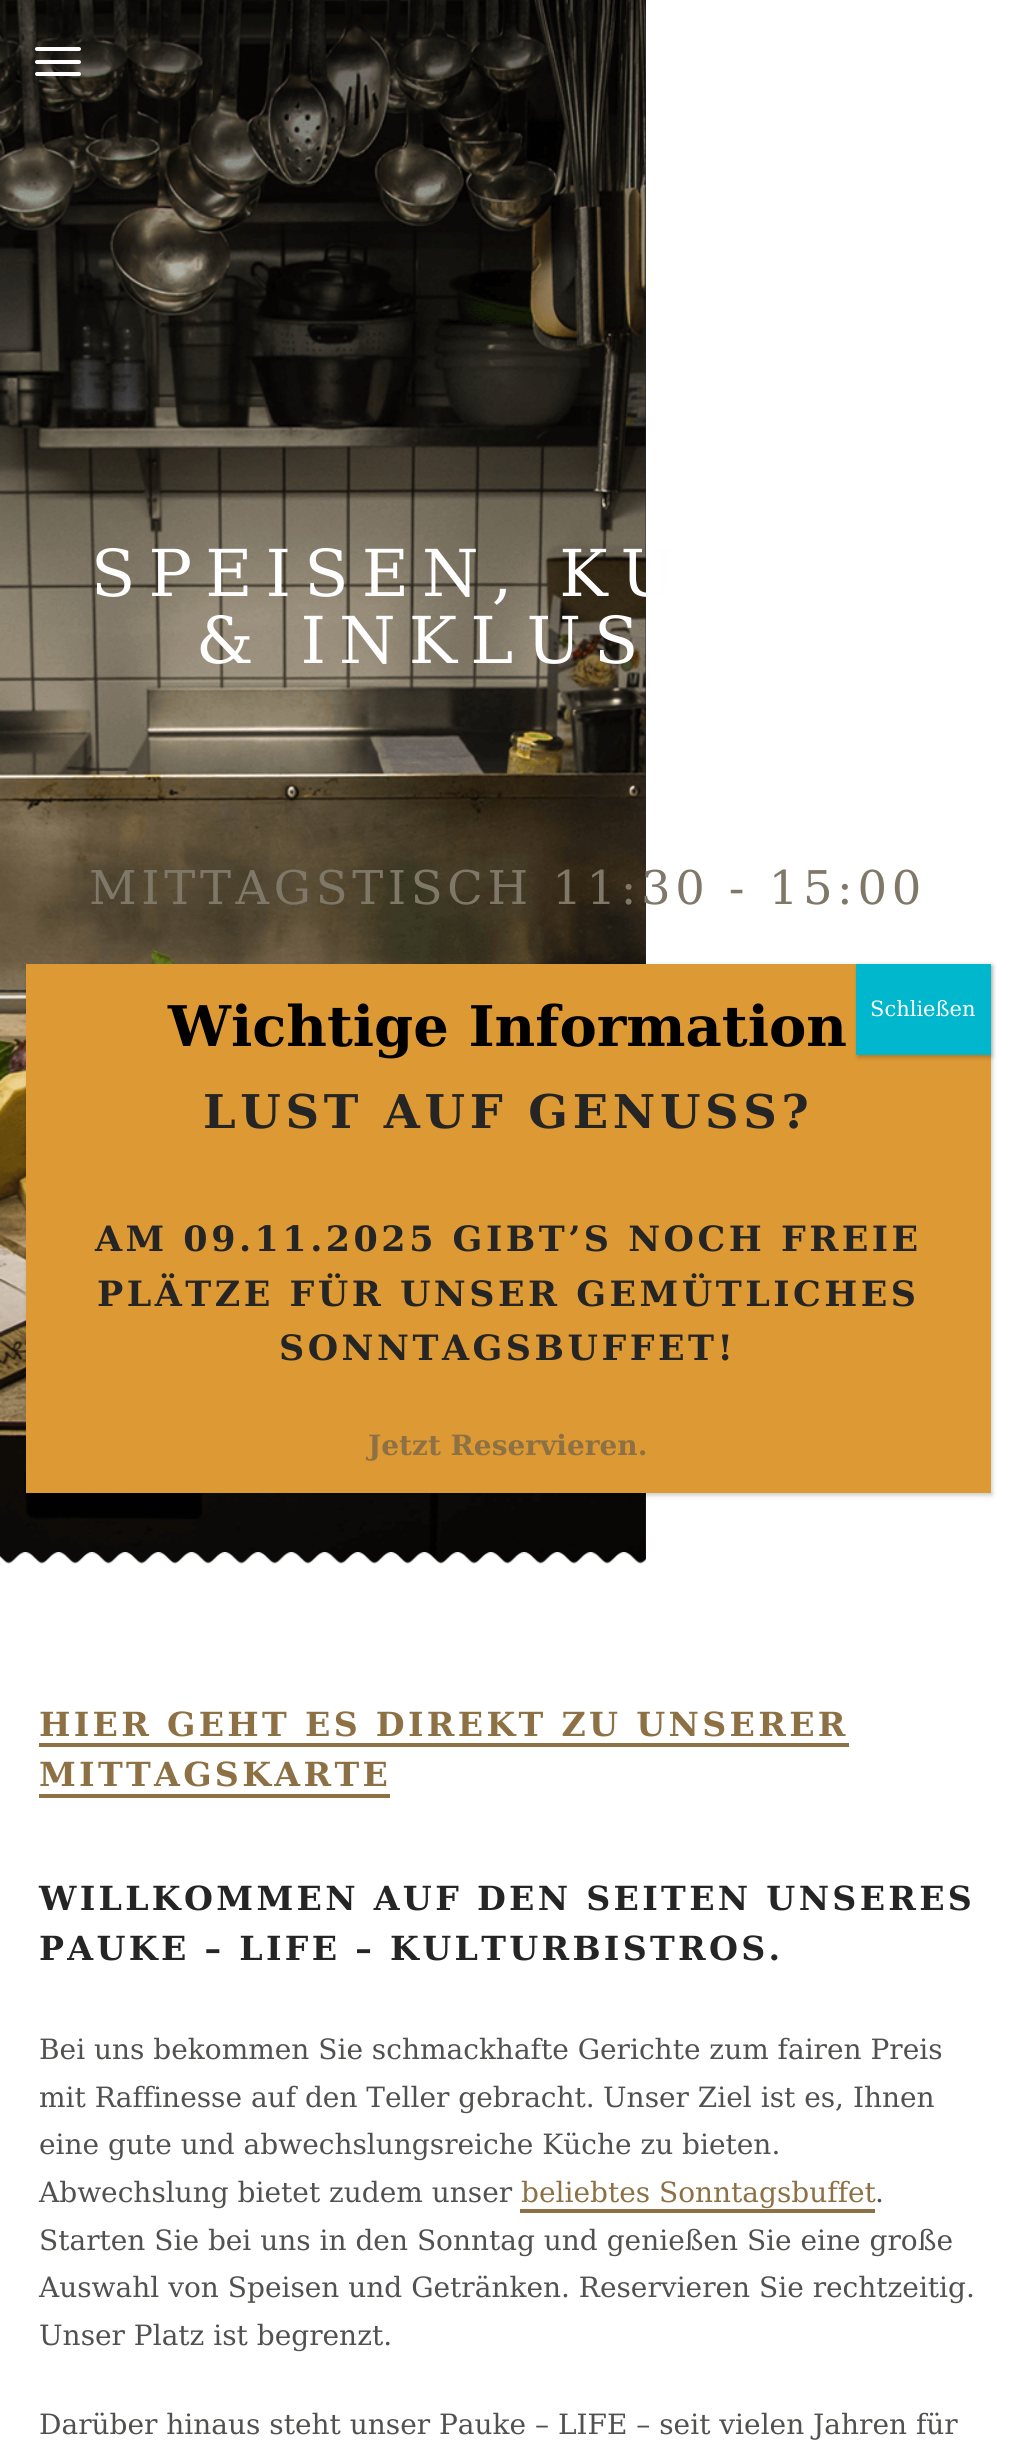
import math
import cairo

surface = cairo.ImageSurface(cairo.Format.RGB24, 1014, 2457)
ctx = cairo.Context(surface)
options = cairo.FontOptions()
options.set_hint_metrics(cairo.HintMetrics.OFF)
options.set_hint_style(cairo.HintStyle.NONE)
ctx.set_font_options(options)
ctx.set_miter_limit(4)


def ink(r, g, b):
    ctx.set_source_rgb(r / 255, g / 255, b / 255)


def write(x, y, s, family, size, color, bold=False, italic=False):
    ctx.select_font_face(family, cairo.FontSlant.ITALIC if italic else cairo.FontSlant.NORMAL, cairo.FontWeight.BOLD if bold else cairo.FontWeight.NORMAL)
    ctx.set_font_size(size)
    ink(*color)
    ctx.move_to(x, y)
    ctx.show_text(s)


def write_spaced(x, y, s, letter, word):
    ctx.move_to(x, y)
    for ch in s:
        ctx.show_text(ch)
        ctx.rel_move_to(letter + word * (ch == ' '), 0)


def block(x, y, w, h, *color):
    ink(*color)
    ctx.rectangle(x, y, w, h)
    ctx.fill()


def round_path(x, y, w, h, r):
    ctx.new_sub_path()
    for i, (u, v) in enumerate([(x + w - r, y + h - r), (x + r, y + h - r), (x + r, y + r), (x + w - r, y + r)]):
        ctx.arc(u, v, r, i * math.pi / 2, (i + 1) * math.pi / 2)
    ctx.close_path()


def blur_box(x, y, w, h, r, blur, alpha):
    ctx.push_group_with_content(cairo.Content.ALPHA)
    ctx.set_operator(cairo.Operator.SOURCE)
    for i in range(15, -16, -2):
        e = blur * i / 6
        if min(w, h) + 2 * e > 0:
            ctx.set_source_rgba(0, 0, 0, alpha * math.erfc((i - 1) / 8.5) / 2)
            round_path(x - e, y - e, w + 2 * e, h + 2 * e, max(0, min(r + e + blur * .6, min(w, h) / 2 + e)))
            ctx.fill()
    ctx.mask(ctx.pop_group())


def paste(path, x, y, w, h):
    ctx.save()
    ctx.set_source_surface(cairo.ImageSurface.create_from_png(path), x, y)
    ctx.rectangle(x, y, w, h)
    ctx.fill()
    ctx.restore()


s1 = dict(family="DejaVu Serif", size=28, color=(81, 81, 80))
s2 = dict(family="DejaVu Serif", size=28, color=(141, 113, 68))
s3 = dict(family="DejaVu Serif", size=56, color=(0, 0, 0), bold=True)
s4 = dict(family="DejaVu Serif", size=21, color=(254, 254, 254))
s5 = dict(family="DejaVu Serif", size=28, color=(141, 113, 68), bold=True)

ink(255, 255, 255)
ctx.paint()
block(645, 0, 1, 1562, 37, 37, 37)
paste("pic1.png", 0, 0, 646, 1564)
ink(255, 255, 255)
round_path(35, 60, 46, 4, 2)
ctx.fill()
round_path(35, 47, 46, 4, 2)
ctx.fill()
round_path(35, 72, 46, 4, 2)
ctx.fill()
ctx.select_font_face("DejaVu Serif")
ctx.set_font_size(64.75)
ink(254, 254, 254)
write_spaced(91, 596, "SPEISEN, KU", 13.1, 0)
write_spaced(196, 663, "& INKLUS", 13.1, 0)
ctx.set_font_size(46.5)
ink(127, 120, 105)
write_spaced(89, 904, "MITTAGSTISCH 11:30 - 15:00", 4.65, 0)
paste("pic2.png", 0, 1552, 646, 13)
ctx.select_font_face("DejaVu Serif", cairo.FontSlant.NORMAL, cairo.FontWeight.BOLD)
ctx.set_font_size(33.25)
ink(141, 113, 68)
write_spaced(39, 1736, "HIER GEHT ES DIREKT ZU UNSERER", 3.3, 0)
block(39, 1743, 810, 4, 141, 113, 68)
write_spaced(39, 1786, "MITTAGSKARTE", 3.3, 0)
block(39, 1794, 351, 4, 141, 113, 68)
ink(37, 37, 37)
write_spaced(39, 1910, "WILLKOMMEN AUF DEN SEITEN UNSERES", 3.3, 0)
write_spaced(39, 1960, "PAUKE – LIFE – KULTURBISTROS.", 3.3, 0)
write(39, 2059, "Bei uns bekommen Sie schmackhafte Gerichte zum fairen Preis", **s1)
write(39, 2107, "mit Raffinesse auf den Teller gebracht.", **s1)
write(603, 2107, "Unser Ziel ist es, Ihnen", **s1)
write(39, 2154, "eine gute und abwechslungsreiche Küche zu bieten.", **s1)
write(39, 2202, "Abwechslung bietet zudem unser", **s1)
write(521, 2202, "beliebtes Sonntagsbuffet", **s2)
block(520, 2209, 355, 4, 141, 113, 68)
write(875, 2202, ".", **s1)
write(39, 2250, "Starten Sie bei uns in den Sonntag und genießen Sie eine große", **s1)
write(39, 2297, "Auswahl von Speisen und Getränken. Reservieren Sie rechtzeitig.", **s1)
write(39, 2345, "Unser Platz ist begrenzt.", **s1)
write(39, 2434, "Darüber hinaus steht unser Pauke – LIFE – seit vielen Jahren für", **s1)
ink(2, 2, 2)
blur_box(28, 966, 964, 529, 0, 2.5, 0.23)
block(26, 964, 965, 529, 221, 153, 51)
write(168, 1046, "Wichtige Information", **s3)
ink(2, 2, 2)
blur_box(858, 966, 134, 91, 0, 2.5, 0.23)
block(856, 964, 135, 91, 0, 183, 205)
write(870, 1016, "Schließen", **s4)
ctx.select_font_face("DejaVu Serif", cairo.FontSlant.NORMAL, cairo.FontWeight.BOLD)
ctx.set_font_size(46.5)
ink(37, 37, 37)
write_spaced(203, 1128, "LUST AUF GENUSS?", 4.65, 0)
ctx.set_font_size(34.9)
write_spaced(95, 1251, "AM 09.11.2025 GIBT’S NOCH FREIE", 3.5, 0)
write_spaced(97, 1306, "PLÄTZE FÜR UNSER GEMÜTLICHES", 3.5, 0)
write_spaced(279, 1360, "SONNTAGSBUFFET!", 3.5, 0)
write(368, 1455, "Jetzt Reservieren.", **s5)
surface.write_to_png("screenshot.png")
